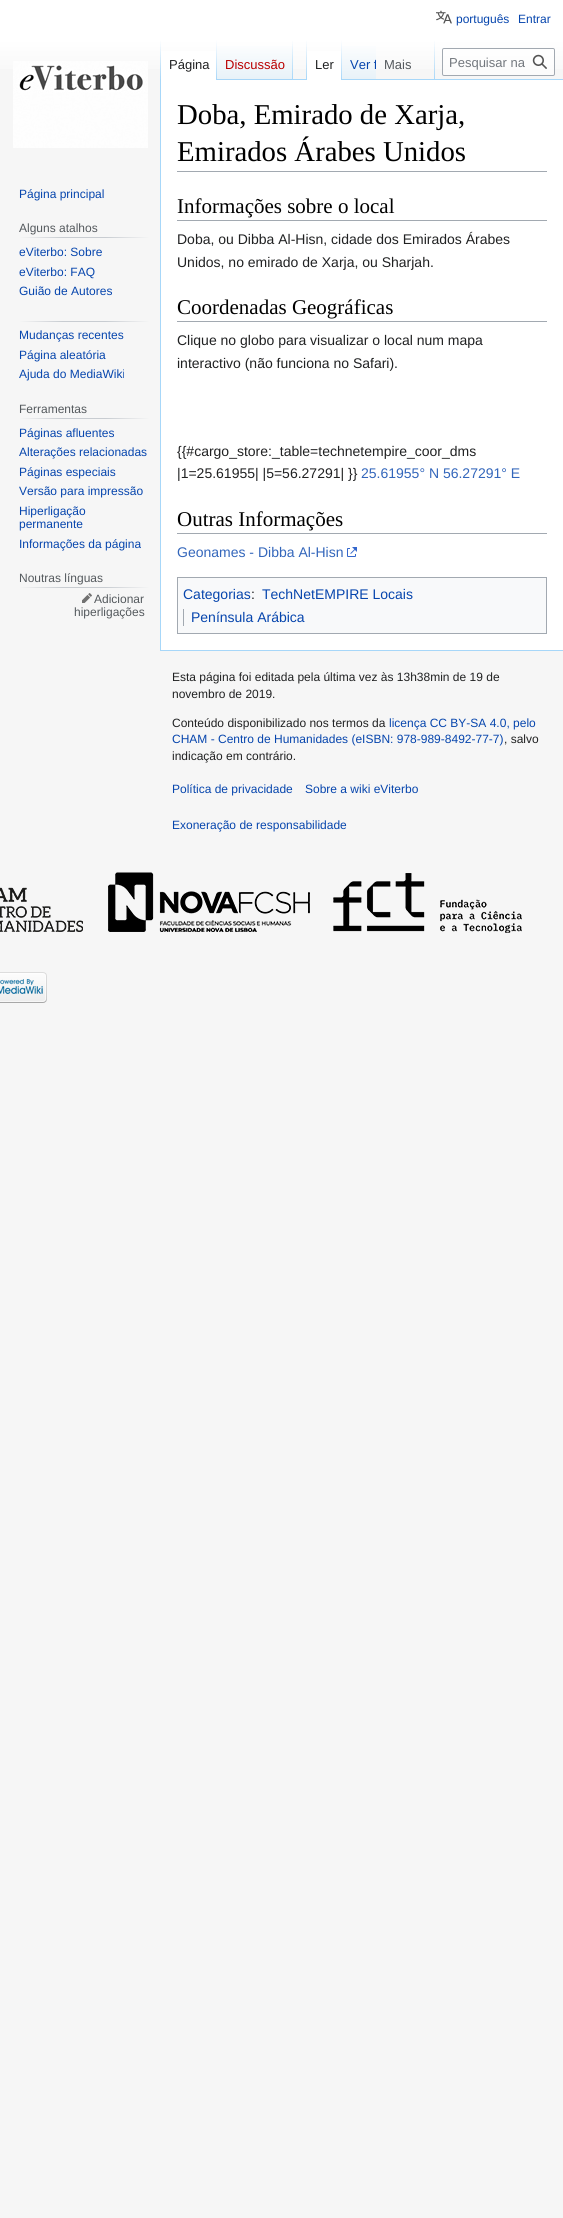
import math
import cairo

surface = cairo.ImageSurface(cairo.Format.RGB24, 563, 2218)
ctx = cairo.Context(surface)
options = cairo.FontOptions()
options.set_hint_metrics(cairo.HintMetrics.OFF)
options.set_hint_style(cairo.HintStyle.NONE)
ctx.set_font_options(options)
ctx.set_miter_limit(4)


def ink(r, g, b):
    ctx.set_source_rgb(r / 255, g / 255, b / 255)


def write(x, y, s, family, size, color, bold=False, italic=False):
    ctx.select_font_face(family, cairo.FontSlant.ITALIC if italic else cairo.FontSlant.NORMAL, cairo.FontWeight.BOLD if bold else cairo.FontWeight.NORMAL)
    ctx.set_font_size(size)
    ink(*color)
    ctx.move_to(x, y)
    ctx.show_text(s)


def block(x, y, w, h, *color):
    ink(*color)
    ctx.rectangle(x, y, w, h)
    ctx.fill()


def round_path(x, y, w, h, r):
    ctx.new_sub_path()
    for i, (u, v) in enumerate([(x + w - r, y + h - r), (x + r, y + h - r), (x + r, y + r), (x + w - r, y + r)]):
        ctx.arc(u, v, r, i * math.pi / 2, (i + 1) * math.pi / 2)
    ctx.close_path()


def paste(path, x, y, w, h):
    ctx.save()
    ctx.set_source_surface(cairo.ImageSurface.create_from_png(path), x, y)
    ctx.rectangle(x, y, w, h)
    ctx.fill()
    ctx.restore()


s1 = dict(family="Liberation Sans", size=12, color=(6, 69, 173))
s2 = dict(family="Liberation Sans", size=13, color=(32, 33, 34))
s3 = dict(family="Liberation Sans", size=13, color=(186, 0, 0))
s4 = dict(family="Liberation Sans", size=13, color=(6, 69, 173))
s5 = dict(family="Liberation Sans", size=13, color=(84, 89, 93))
s6 = dict(family="Liberation Sans", size=13, color=(114, 119, 125))
s7 = dict(family="Liberation Sans", size=12, color=(84, 89, 93))
s8 = dict(family="Liberation Serif", size=28.75, color=(0, 0, 0))
s9 = dict(family="Liberation Serif", size=21, color=(0, 0, 0))
s10 = dict(family="Liberation Sans", size=14, color=(32, 33, 34))
s11 = dict(family="Liberation Sans", size=14, color=(51, 102, 187))
s12 = dict(family="Liberation Sans", size=14, color=(6, 69, 173))
s13 = dict(family="Liberation Sans", size=12, color=(32, 33, 34))

ink(246, 246, 246)
ctx.paint()
gradient = cairo.LinearGradient(282, 0, 282, 80)
gradient.add_color_stop_rgba(0.5, 1, 1, 1, 1)
gradient.add_color_stop_rgba(1, 0.965, 0.965, 0.965, 1)
ctx.set_source(gradient)
ctx.rectangle(0, 0, 563, 69)
ctx.fill()
paste("pic1.png", 436, 10, 16, 14)
write(456, 23, "português", **s1)
write(518, 23, "Entrar", **s1)
block(160, 650, 403, 1, 167, 215, 249)
block(160, 79, 1, 572, 167, 215, 249)
gradient = cairo.LinearGradient(161, 40, 161, 80)
gradient.add_color_stop_rgba(0, 0.655, 0.843, 0.976, 0)
gradient.add_color_stop_rgba(1, 0.655, 0.843, 0.976, 1)
ctx.set_source(gradient)
ctx.rectangle(160, 40, 1, 40)
ctx.fill()
block(161, 51, 55, 29, 255, 255, 255)
gradient = cairo.LinearGradient(217, 40, 217, 80)
gradient.add_color_stop_rgba(0, 1, 1, 1, 1)
gradient.add_color_stop_rgba(1, 0.655, 0.843, 0.976, 1)
ctx.set_source(gradient)
ctx.rectangle(216, 40, 1, 40)
ctx.fill()
write(169, 69, "Página", **s2)
gradient = cairo.LinearGradient(255, 80, 255, 40)
gradient.add_color_stop_rgba(0, 0.467, 0.757, 0.965, 1)
gradient.add_color_stop_rgba(0.03, 0.91, 0.949, 0.973, 1)
gradient.add_color_stop_rgba(1, 1, 1, 1, 1)
ctx.set_source(gradient)
ctx.rectangle(217, 46, 76, 34)
ctx.fill()
gradient = cairo.LinearGradient(293, 40, 293, 80)
gradient.add_color_stop_rgba(0, 0.655, 0.843, 0.976, 0)
gradient.add_color_stop_rgba(1, 0.655, 0.843, 0.976, 1)
ctx.set_source(gradient)
ctx.rectangle(292, 40, 1, 40)
ctx.fill()
write(225, 69, "Discussão", **s3)
block(293, 79, 270, 1, 167, 215, 249)
gradient = cairo.LinearGradient(307, 40, 307, 80)
gradient.add_color_stop_rgba(0, 0.655, 0.843, 0.976, 0)
gradient.add_color_stop_rgba(1, 0.655, 0.843, 0.976, 1)
ctx.set_source(gradient)
ctx.rectangle(306, 40, 1, 40)
ctx.fill()
block(307, 51, 34, 29, 255, 255, 255)
gradient = cairo.LinearGradient(342, 40, 342, 80)
gradient.add_color_stop_rgba(0, 1, 1, 1, 1)
gradient.add_color_stop_rgba(1, 0.655, 0.843, 0.976, 1)
ctx.set_source(gradient)
ctx.rectangle(341, 40, 1, 40)
ctx.fill()
write(315, 69, "Ler", **s2)
gradient = cairo.LinearGradient(359, 80, 359, 40)
gradient.add_color_stop_rgba(0, 0.467, 0.757, 0.965, 1)
gradient.add_color_stop_rgba(0.03, 0.91, 0.949, 0.973, 1)
gradient.add_color_stop_rgba(1, 1, 1, 1, 1)
ctx.set_source(gradient)
ctx.rectangle(342, 46, 34, 33)
ctx.fill()
ctx.save()
ctx.rectangle(342, 40, 34, 40)
ctx.clip()
write(350, 69, "Ver f", **s4)
ctx.restore()
gradient = cairo.LinearGradient(435, 40, 435, 80)
gradient.add_color_stop_rgba(0, 0.655, 0.843, 0.976, 0)
gradient.add_color_stop_rgba(1, 0.655, 0.843, 0.976, 1)
ctx.set_source(gradient)
ctx.rectangle(434, 40, 1, 40)
ctx.fill()
write(384, 69, "Mais", **s5)
ctx.set_source_rgba(1, 1, 1, 0.5)
round_path(442.5, 48.5, 112, 27, 1.5)
ctx.fill_preserve()
ink(162, 169, 177)
ctx.set_line_width(1)
ctx.stroke()
write(449, 67, "Pesquisar na", **s6)
paste("pic2.png", 532, 54, 15, 15)
paste("pic3.png", 13, 61, 135, 87)
write(19, 198, "Página principal", **s1)
gradient = cairo.LinearGradient(19, 238, 150, 238)
gradient.add_color_stop_rgba(0, 0.965, 0.965, 0.965, 1)
gradient.add_color_stop_rgba(0.33, 0.784, 0.8, 0.82, 1)
gradient.add_color_stop_rgba(0.66, 0.784, 0.8, 0.82, 1)
gradient.add_color_stop_rgba(1, 0.965, 0.965, 0.965, 1)
ctx.set_source(gradient)
ctx.rectangle(19, 237, 131, 1)
ctx.fill()
write(19, 232, "Alguns atalhos", **s7)
write(19, 256, "eViterbo: Sobre", **s1)
write(19, 276, "eViterbo: FAQ", **s1)
write(19, 295, "Guião de Autores", **s1)
gradient = cairo.LinearGradient(19, 322, 150, 322)
gradient.add_color_stop_rgba(0, 0.965, 0.965, 0.965, 1)
gradient.add_color_stop_rgba(0.33, 0.784, 0.8, 0.82, 1)
gradient.add_color_stop_rgba(0.66, 0.784, 0.8, 0.82, 1)
gradient.add_color_stop_rgba(1, 0.965, 0.965, 0.965, 1)
ctx.set_source(gradient)
ctx.rectangle(19, 321, 131, 1)
ctx.fill()
write(19, 339, "Mudanças recentes", **s1)
write(19, 359, "Página aleatória", **s1)
write(19, 378, "Ajuda do MediaWiki", **s1)
gradient = cairo.LinearGradient(19, 419, 150, 419)
gradient.add_color_stop_rgba(0, 0.965, 0.965, 0.965, 1)
gradient.add_color_stop_rgba(0.33, 0.784, 0.8, 0.82, 1)
gradient.add_color_stop_rgba(0.66, 0.784, 0.8, 0.82, 1)
gradient.add_color_stop_rgba(1, 0.965, 0.965, 0.965, 1)
ctx.set_source(gradient)
ctx.rectangle(19, 418, 131, 1)
ctx.fill()
write(19, 413, "Ferramentas", **s7)
write(19, 437, "Páginas afluentes", **s1)
write(19, 456, "Alterações relacionadas", **s1)
write(19, 476, "Páginas especiais", **s1)
write(19, 495, "Versão para impressão", **s1)
write(19, 515, "Hiperligação", **s1)
write(19, 528, "permanente", **s1)
write(19, 548, "Informações da página", **s1)
gradient = cairo.LinearGradient(19, 588, 150, 588)
gradient.add_color_stop_rgba(0, 0.965, 0.965, 0.965, 1)
gradient.add_color_stop_rgba(0.33, 0.784, 0.8, 0.82, 1)
gradient.add_color_stop_rgba(0.66, 0.784, 0.8, 0.82, 1)
gradient.add_color_stop_rgba(1, 0.965, 0.965, 0.965, 1)
ctx.set_source(gradient)
ctx.rectangle(19, 587, 131, 1)
ctx.fill()
write(19, 582, "Noutras línguas", **s7)
paste("pic4.png", 82, 593, 10, 10)
write(94, 603, "Adicionar", **s7)
write(74, 616, "hiperligações", **s7)
block(161, 80, 402, 570, 255, 255, 255)
block(177, 171, 370, 1, 162, 169, 177)
write(177, 124, "Doba, Emirado de Xarja,", **s8)
write(177, 161, "Emirados Árabes Unidos", **s8)
block(177, 220, 370, 1, 162, 169, 177)
write(177, 213, "Informações sobre o local", **s9)
write(177, 244, "Doba, ou Dibba Al-Hisn, cidade dos Emirados Árabes", **s10)
write(177, 267, "Unidos, no emirado de Xarja, ou Sharjah.", **s10)
block(177, 321, 370, 1, 162, 169, 177)
write(177, 314, "Coordenadas Geográficas", **s9)
write(177, 345, "Clique no globo para visualizar o local num mapa", **s10)
write(177, 368, "interactivo (não funciona no Safari).", **s10)
write(177, 456, "{{#cargo_store:_table=technetempire_coor_dms", **s10)
write(177, 478, "|1=25.61955| |5=56.27291| }}", **s10)
write(361, 478, "25.61955° N 56.27291° E", **s11)
block(177, 533, 370, 1, 162, 169, 177)
write(177, 526, "Outras Informações", **s9)
write(177, 557, "Geonames - Dibba Al-Hisn", **s11)
paste("pic5.png", 347, 547, 10, 10)
ink(248, 249, 250)
ctx.rectangle(177.5, 577.5, 369, 56)
ctx.fill_preserve()
ink(162, 169, 177)
ctx.stroke()
write(183, 599, "Categorias", **s12)
write(262, 599, "TechNetEMPIRE Locais", **s12)
block(183, 609, 1, 17, 162, 169, 177)
write(191, 622, "Península Arábica", **s12)
write(251, 599, ":", **s10)
write(172, 681, "Esta página foi editada pela última vez às 13h38min de 19 de", **s13)
write(172, 698, "novembro de 2019.", **s13)
write(172, 727, "Conteúdo disponibilizado nos termos da", **s13)
write(389, 727, "licença CC BY-SA 4.0, pelo", **s1)
write(172, 743, "CHAM - Centro de Humanidades (eISBN: 978-989-8492-77-7)", **s1)
write(504, 743, ", salvo", **s13)
write(172, 760, "indicação em contrário.", **s13)
write(172, 793, "Política de privacidade", **s1)
write(305, 793, "Sobre a wiki eViterbo", **s1)
write(172, 829, "Exoneração de responsabilidade", **s1)
paste("pic6.png", 0, 872, 522, 61)
paste("pic7.png", 0, 972, 47, 31)
surface.write_to_png("screenshot.png")
